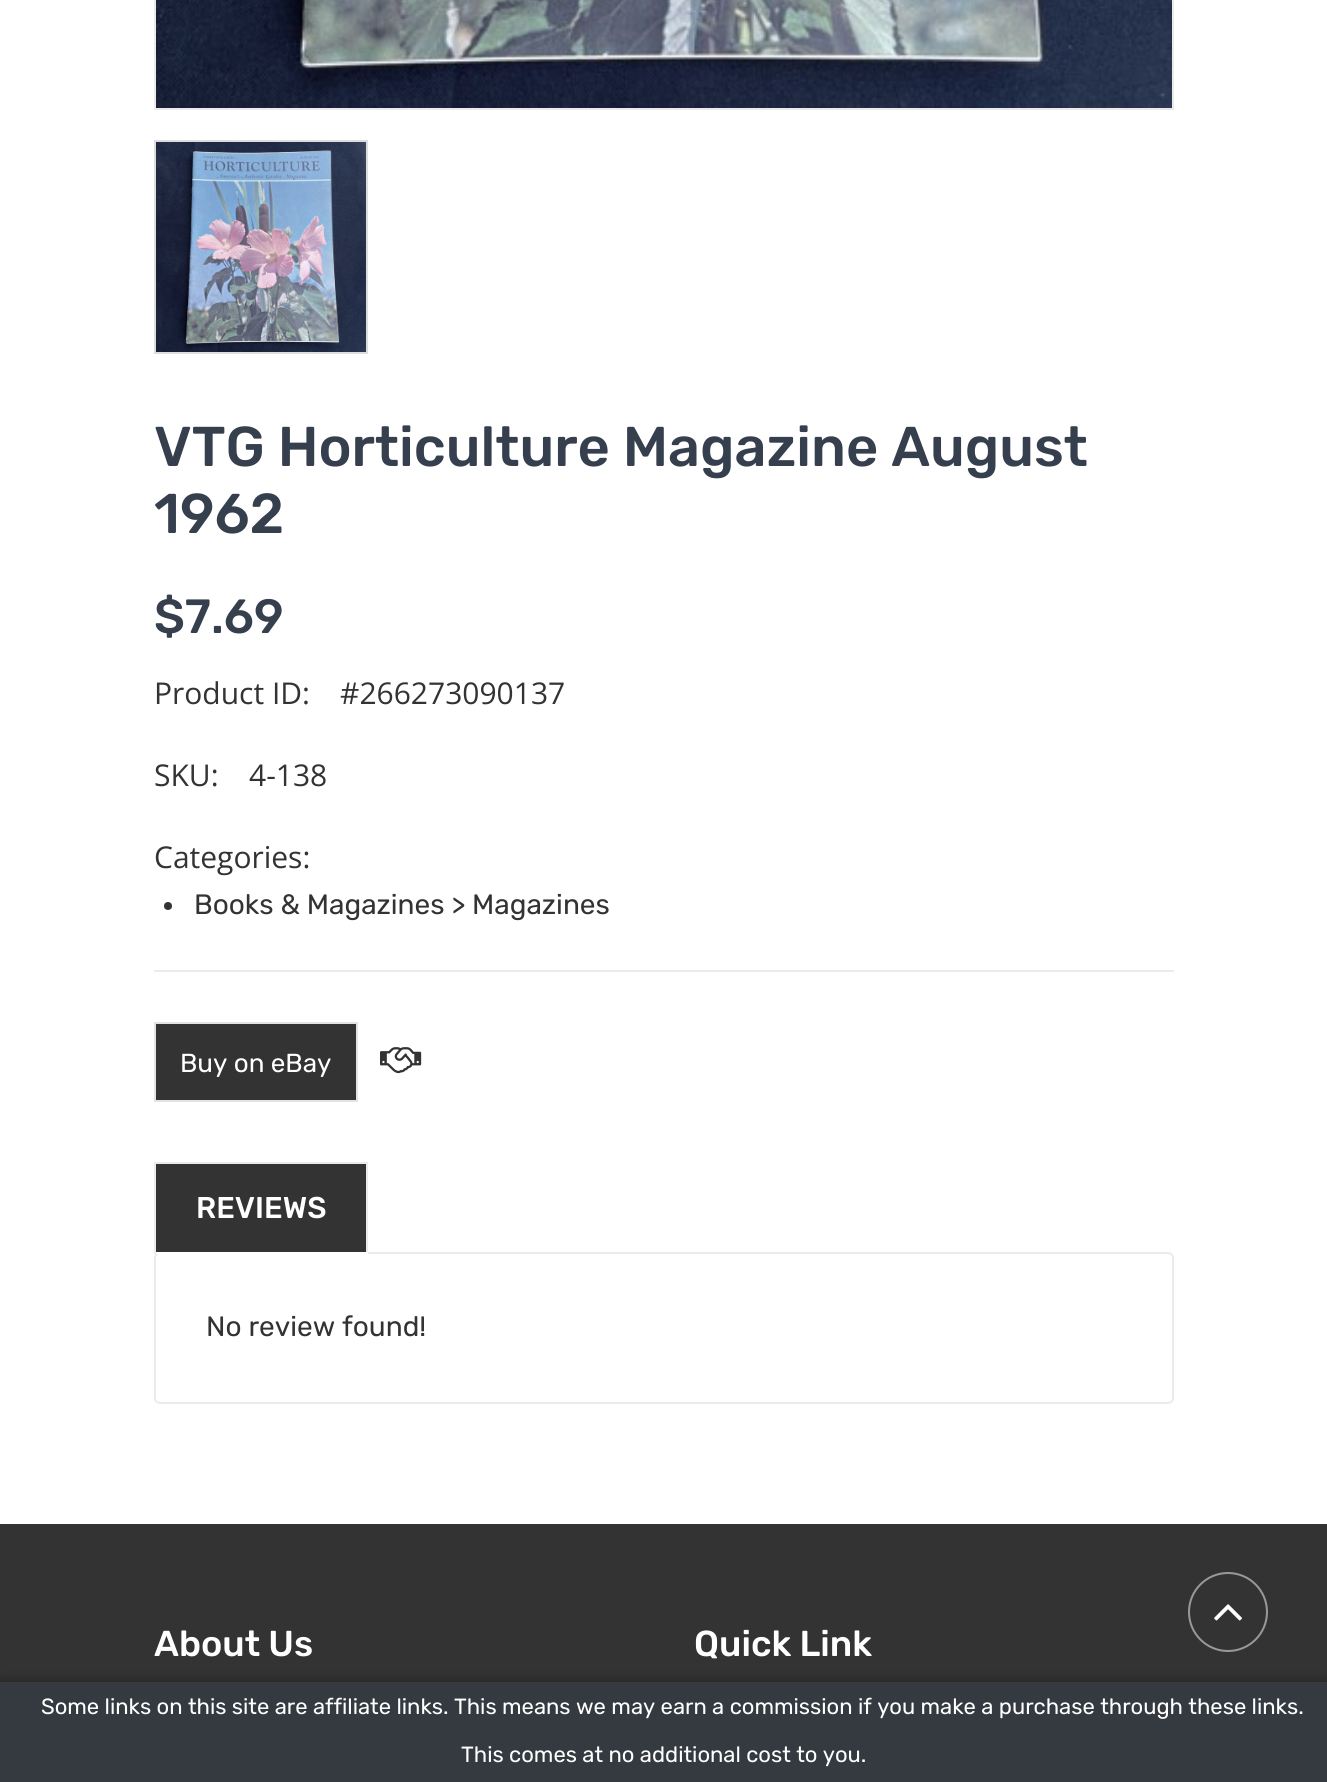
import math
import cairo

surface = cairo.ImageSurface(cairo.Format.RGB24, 1327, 1782)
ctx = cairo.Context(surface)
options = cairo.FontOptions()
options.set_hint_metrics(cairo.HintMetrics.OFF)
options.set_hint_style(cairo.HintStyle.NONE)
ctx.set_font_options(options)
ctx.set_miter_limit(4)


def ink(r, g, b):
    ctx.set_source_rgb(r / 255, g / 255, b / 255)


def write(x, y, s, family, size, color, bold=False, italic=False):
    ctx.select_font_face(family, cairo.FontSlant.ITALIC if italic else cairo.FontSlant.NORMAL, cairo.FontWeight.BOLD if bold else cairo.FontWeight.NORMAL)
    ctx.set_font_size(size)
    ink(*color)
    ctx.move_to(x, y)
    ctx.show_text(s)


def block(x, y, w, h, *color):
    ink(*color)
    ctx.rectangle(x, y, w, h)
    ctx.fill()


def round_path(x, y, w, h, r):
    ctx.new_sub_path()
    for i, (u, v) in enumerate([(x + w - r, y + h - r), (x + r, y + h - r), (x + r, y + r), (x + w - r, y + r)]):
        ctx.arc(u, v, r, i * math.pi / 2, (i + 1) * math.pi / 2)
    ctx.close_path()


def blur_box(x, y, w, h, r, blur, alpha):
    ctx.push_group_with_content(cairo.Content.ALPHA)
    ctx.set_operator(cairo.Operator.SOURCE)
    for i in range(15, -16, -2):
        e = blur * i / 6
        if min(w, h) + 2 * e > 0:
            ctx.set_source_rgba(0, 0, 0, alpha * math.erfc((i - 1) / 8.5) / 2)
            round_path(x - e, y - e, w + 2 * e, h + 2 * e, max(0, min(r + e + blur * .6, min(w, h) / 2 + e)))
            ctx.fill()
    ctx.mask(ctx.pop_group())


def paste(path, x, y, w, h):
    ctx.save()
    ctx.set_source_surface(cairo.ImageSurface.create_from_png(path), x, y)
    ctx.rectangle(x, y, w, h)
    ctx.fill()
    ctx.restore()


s1 = dict(family="Rubik Medium", size=56, color=(54, 63, 77))
s2 = dict(family="Rubik Medium", size=48, color=(54, 63, 77))
s3 = dict(family="Open Sans", size=30, color=(51, 51, 51))
s4 = dict(family="Rubik", size=28, color=(51, 51, 51))
s5 = dict(family="Rubik", size=26, color=(255, 255, 255))
s6 = dict(family="Rubik Medium", size=30, color=(255, 255, 255))
s7 = dict(family="Rubik Medium", size=36, color=(255, 255, 255))
s8 = dict(family="Rubik", size=22, color=(255, 255, 255))

ink(255, 255, 255)
ctx.paint()
ctx.rectangle(155, -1, 1018, 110)
ink(235, 235, 235)
ctx.stroke()
paste("pic1.png", 156, 0, 1016, 108)
ctx.rectangle(155, 141, 212, 212)
ink(221, 221, 221)
ctx.stroke()
paste("pic2.png", 156, 142, 210, 210)
write(154, 466, "VTG Horticulture Magazine August", **s1)
write(154, 533, "1962", **s1)
write(154, 633, "$7.69", **s2)
write(154, 704, "Product ID:", **s3)
write(340, 704, "#266273090137", **s3)
write(154, 786, "SKU:", **s3)
write(249, 786, "4-138", **s3)
write(154, 868, "Categories:", **s3)
ctx.new_path()
ctx.arc(168, 906, 4, 0, 2 * math.pi)
ctx.fill()
write(194, 914, "Books & Magazines > Magazines", **s4)
block(154, 970, 1020, 2, 235, 235, 235)
ink(51, 51, 51)
ctx.rectangle(155, 1023, 202, 78)
ctx.fill_preserve()
ink(227, 227, 227)
ctx.stroke()
write(180, 1072, "Buy on eBay", **s5)
paste("pic3.png", 380, 1047, 42, 27)
block(156, 1164, 210, 88, 51, 51, 51)
block(154, 1162, 214, 2, 235, 235, 235)
round_path(155, 1253, 1018, 150, 5)
ctx.stroke()
block(366, 1162, 2, 92, 235, 235, 235)
block(154, 1252, 214, 2, 255, 255, 255)
block(154, 1162, 2, 92, 235, 235, 235)
write(196, 1218, "REVIEWS", **s6)
write(206, 1336, "No review found!", **s4)
block(0, 1524, 1327, 158, 51, 51, 51)
write(154, 1656, "About Us", **s7)
write(694, 1656, "Quick Link", **s7)
ctx.new_path()
ctx.arc(1228, 1612, 39, 0, 2 * math.pi)
ink(153, 153, 153)
ctx.stroke()
paste("pic4.png", 1214, 1604, 28, 17)
ink(0, 0, 0)
blur_box(0, 1678, 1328, 100, 0, 5, 0.2)
block(0, 1682, 1327, 100, 52, 58, 64)
write(41, 1714, "Some links on this site are affiliate links. This means we may earn a commission if you make a purchase through these links.", **s8)
write(461, 1762, "This comes at no additional cost to you.", **s8)
surface.write_to_png("screenshot.png")
